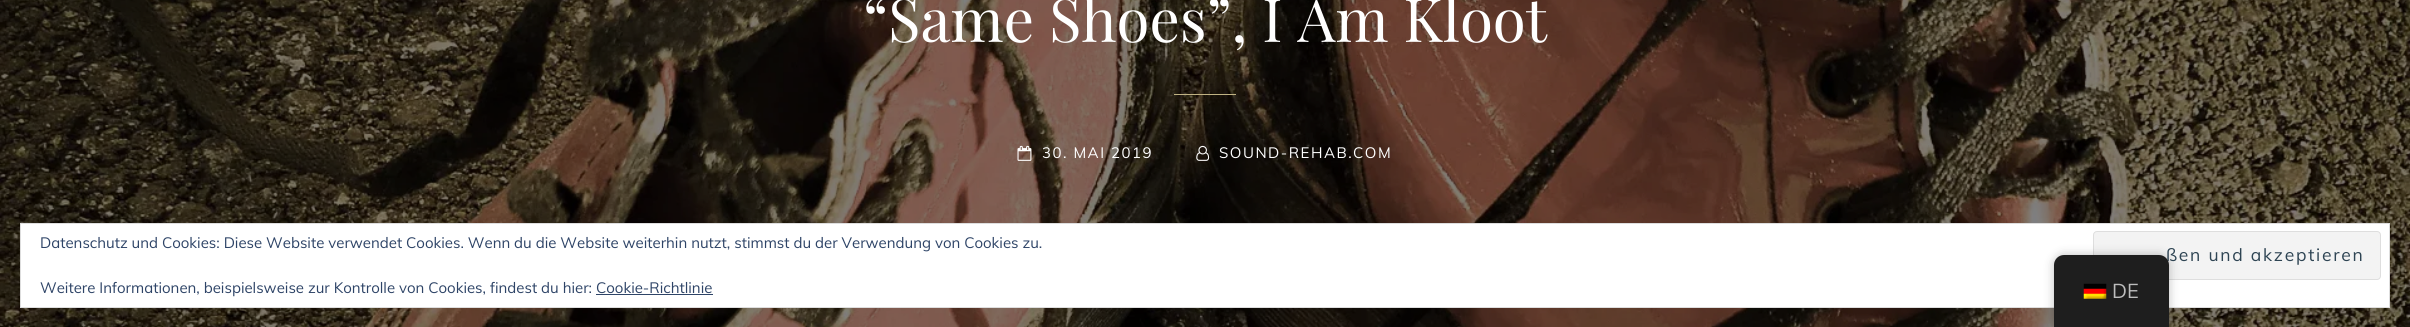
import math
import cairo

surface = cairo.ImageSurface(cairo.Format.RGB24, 2410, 327)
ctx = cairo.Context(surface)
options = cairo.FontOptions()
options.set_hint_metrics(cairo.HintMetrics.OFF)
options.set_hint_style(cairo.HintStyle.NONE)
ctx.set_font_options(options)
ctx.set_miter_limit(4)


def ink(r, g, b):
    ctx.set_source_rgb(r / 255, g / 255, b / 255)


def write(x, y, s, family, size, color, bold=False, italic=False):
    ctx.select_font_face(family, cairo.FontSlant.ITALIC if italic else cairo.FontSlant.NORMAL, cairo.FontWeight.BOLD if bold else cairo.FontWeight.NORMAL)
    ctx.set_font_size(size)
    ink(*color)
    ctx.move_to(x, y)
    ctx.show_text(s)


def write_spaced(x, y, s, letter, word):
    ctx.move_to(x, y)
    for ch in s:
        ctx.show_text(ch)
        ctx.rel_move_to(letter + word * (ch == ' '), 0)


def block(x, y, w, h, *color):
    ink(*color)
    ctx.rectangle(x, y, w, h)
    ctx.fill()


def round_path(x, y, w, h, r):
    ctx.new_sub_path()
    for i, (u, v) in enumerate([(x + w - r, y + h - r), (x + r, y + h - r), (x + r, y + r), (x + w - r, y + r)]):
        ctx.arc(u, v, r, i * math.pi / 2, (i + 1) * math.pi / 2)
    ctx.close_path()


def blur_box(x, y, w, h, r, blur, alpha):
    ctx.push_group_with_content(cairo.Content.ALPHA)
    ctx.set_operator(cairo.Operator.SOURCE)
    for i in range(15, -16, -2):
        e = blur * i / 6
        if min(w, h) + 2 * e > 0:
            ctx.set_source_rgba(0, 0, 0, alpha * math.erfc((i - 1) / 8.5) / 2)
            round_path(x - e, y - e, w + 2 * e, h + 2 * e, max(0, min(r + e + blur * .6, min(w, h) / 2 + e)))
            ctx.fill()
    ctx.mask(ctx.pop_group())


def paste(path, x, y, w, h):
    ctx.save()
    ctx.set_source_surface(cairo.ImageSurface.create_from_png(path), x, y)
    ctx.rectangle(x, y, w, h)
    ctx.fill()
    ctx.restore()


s1 = dict(family="Playfair Display", size=60, color=(255, 255, 255))
s2 = dict(family="Muli", size=15, color=(46, 68, 103))
s3 = dict(family="Muli", size=20, color=(189, 189, 189))

ink(255, 255, 255)
ctx.paint()
paste("pic1.png", 0, 0, 2410, 327)
write(863, 42, "“Same Shoes”, I Am Kloot", **s1)
block(1174, 94, 62, 1, 192, 178, 131)
paste("pic2.png", 1017, 145, 15, 16)
ctx.select_font_face("Muli")
ctx.set_font_size(15)
ink(255, 255, 255)
write_spaced(1042, 158, "30. MAI 2019", 1.5, 0)
paste("pic3.png", 1196, 145, 14, 16)
write_spaced(1219, 158, "SOUND-REHAB.COM", 1.5, 0)
ctx.rectangle(20.5, 223.5, 2369, 84)
ctx.fill_preserve()
ink(222, 222, 222)
ctx.set_line_width(1)
ctx.stroke()
write(40, 248, "Datenschutz und Cookies: Diese Website verwendet Cookies. Wenn du die Website weiterhin nutzt, stimmst du der Verwendung von Cookies zu.", **s2)
ink(243, 243, 243)
round_path(2093.5, 231.5, 287, 48, 3.5)
ctx.fill_preserve()
ink(222, 222, 222)
ctx.stroke()
ctx.set_font_size(17.5)
ink(46, 68, 83)
write_spaced(2166, 261, "ßen und akzeptieren", 1.75, 0)
write(40, 293, "Weitere Informationen, beispielsweise zur Kontrolle von Cookies, findest du hier: Cookie-Richtlinie", **s2)
block(596, 294, 117, 1, 46, 68, 103)
ink(0, 0, 0)
blur_box(2054, 255, 115, 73, 10, 5, 0.25)
ink(30, 30, 30)
ctx.new_path()
ctx.move_to(2064, 255)
ctx.line_to(2159, 255)
ctx.curve_to(2164.5, 255, 2169, 259.5, 2169, 265)
ctx.line_to(2169, 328)
ctx.line_to(2054, 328)
ctx.line_to(2054, 265)
ctx.curve_to(2054, 259.5, 2058.5, 255, 2064, 255)
ctx.close_path()
ctx.fill()
paste("pic4.png", 2083, 283, 24, 16)
write(2112, 298, "DE", **s3)
surface.write_to_png("screenshot.png")
